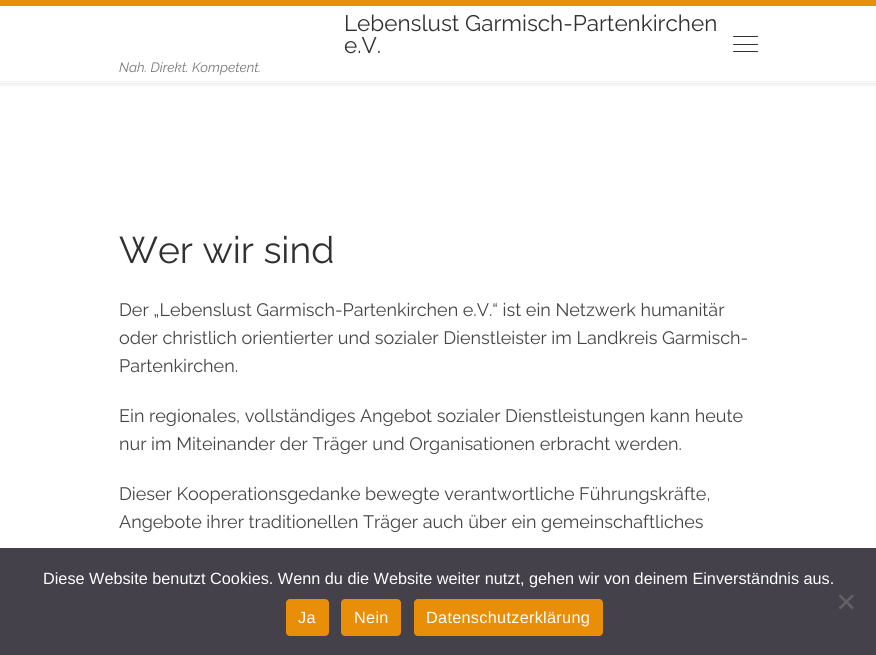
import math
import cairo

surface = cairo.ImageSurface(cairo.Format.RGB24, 876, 655)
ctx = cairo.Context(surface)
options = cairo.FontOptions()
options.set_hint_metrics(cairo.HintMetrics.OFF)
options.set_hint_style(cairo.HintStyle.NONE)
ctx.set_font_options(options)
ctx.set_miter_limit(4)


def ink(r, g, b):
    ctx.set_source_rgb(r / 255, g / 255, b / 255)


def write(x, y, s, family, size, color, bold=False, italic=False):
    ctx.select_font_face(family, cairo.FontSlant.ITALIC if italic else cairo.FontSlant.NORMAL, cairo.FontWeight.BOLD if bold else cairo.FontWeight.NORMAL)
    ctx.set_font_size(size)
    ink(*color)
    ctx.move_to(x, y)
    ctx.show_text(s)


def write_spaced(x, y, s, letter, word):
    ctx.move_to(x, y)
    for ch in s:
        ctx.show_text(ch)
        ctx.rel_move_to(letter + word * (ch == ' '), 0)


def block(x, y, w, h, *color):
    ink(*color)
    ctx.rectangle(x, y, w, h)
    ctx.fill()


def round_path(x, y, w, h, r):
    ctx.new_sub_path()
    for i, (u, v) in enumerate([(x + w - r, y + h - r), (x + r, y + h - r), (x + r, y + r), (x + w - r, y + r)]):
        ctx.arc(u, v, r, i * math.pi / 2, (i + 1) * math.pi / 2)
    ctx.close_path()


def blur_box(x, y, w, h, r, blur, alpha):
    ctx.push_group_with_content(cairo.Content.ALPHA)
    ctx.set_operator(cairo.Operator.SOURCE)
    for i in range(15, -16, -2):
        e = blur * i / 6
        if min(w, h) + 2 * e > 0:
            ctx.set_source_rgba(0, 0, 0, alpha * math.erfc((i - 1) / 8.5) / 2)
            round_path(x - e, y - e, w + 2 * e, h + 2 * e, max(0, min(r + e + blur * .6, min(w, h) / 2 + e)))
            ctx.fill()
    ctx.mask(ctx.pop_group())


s1 = dict(family="Raleway", size=22.5, color=(48, 49, 51))
s2 = dict(family="Raleway", size=13.5, color=(119, 119, 119), italic=True)
s3 = dict(family="Raleway", size=37.25, color=(48, 49, 51))
s4 = dict(family="Raleway", size=18, color=(68, 68, 68))
s5 = dict(family="Liberation Sans", size=16.25, color=(255, 255, 255))

ink(255, 255, 255)
ctx.paint()
ink(102, 102, 102)
blur_box(0, 3, 876, 83, 0, 1, 0.08)
block(0, 6, 876, 77, 255, 255, 255)
block(0, 0, 876, 6, 232, 142, 9)
block(0, 83, 876, 1, 236, 236, 236)
write(344, 31, "Lebenslust Garmisch-Partenkirchen", **s1)
write(344, 53, "e.V.", **s1)
write(119, 72, "Nah. Direkt. Kompetent.", **s2)
ink(49, 49, 49)
round_path(733, 36, 25, 1, 0.5)
ctx.fill()
round_path(733, 44, 25, 1, 0.5)
ctx.fill()
round_path(733, 51, 25, 1, 0.5)
ctx.fill()
block(0, 81, 876, 1, 240, 240, 240)
write(119, 263, "Wer wir sind", **s3)
write(119, 316, "Der „Lebenslust Garmisch-Partenkirchen e.V.“ ist ein Netzwerk humanitär", **s4)
write(119, 344, "oder christlich orientierter und sozialer Dienstleister im Landkreis Garmisch-", **s4)
write(119, 372, "Partenkirchen.", **s4)
write(119, 422, "Ein regionales, vollständiges Angebot sozialer Dienstleistungen kann heute", **s4)
write(119, 450, "nur im Miteinander der Träger und Organisationen erbracht werden.", **s4)
write(119, 500, "Dieser Kooperationsgedanke bewegte verantwortliche Führungskräfte,", **s4)
write(119, 528, "Angebote ihrer traditionellen Träger auch über ein gemeinschaftliches", **s4)
ctx.set_source_rgba(0.141, 0.125, 0.169, 0.85)
ctx.rectangle(0, 548, 876, 107)
ctx.fill()
write(43, 584, "Diese Website benutzt Cookies. Wenn du die Website weiter nutzt, gehen wir von deinem Einverständnis aus.", **s5)
ink(98, 97, 101)
ctx.new_path()
ctx.move_to(852, 594.5)
ctx.line_to(854, 596)
ctx.line_to(840.5, 609.5)
ctx.line_to(838.5, 607.5)
ctx.close_path()
ctx.fill()
ctx.new_path()
ctx.move_to(838.5, 596)
ctx.line_to(840.5, 594.5)
ctx.line_to(854, 607.5)
ctx.line_to(852, 609.5)
ctx.close_path()
ctx.fill()
ink(232, 142, 9)
round_path(286, 599, 43, 37, 4)
ctx.fill()
ink(255, 255, 255)
write_spaced(298, 623, "Ja", 0.3, 0)
ink(232, 142, 9)
round_path(341, 599, 60, 37, 4)
ctx.fill()
ink(255, 255, 255)
write_spaced(354, 623, "Nein", 0.3, 0)
ink(232, 142, 9)
round_path(414, 599, 189, 37, 4)
ctx.fill()
ink(255, 255, 255)
write_spaced(426, 623, "Datenschutzerklärung", 0.3, 0)
surface.write_to_png("screenshot.png")
